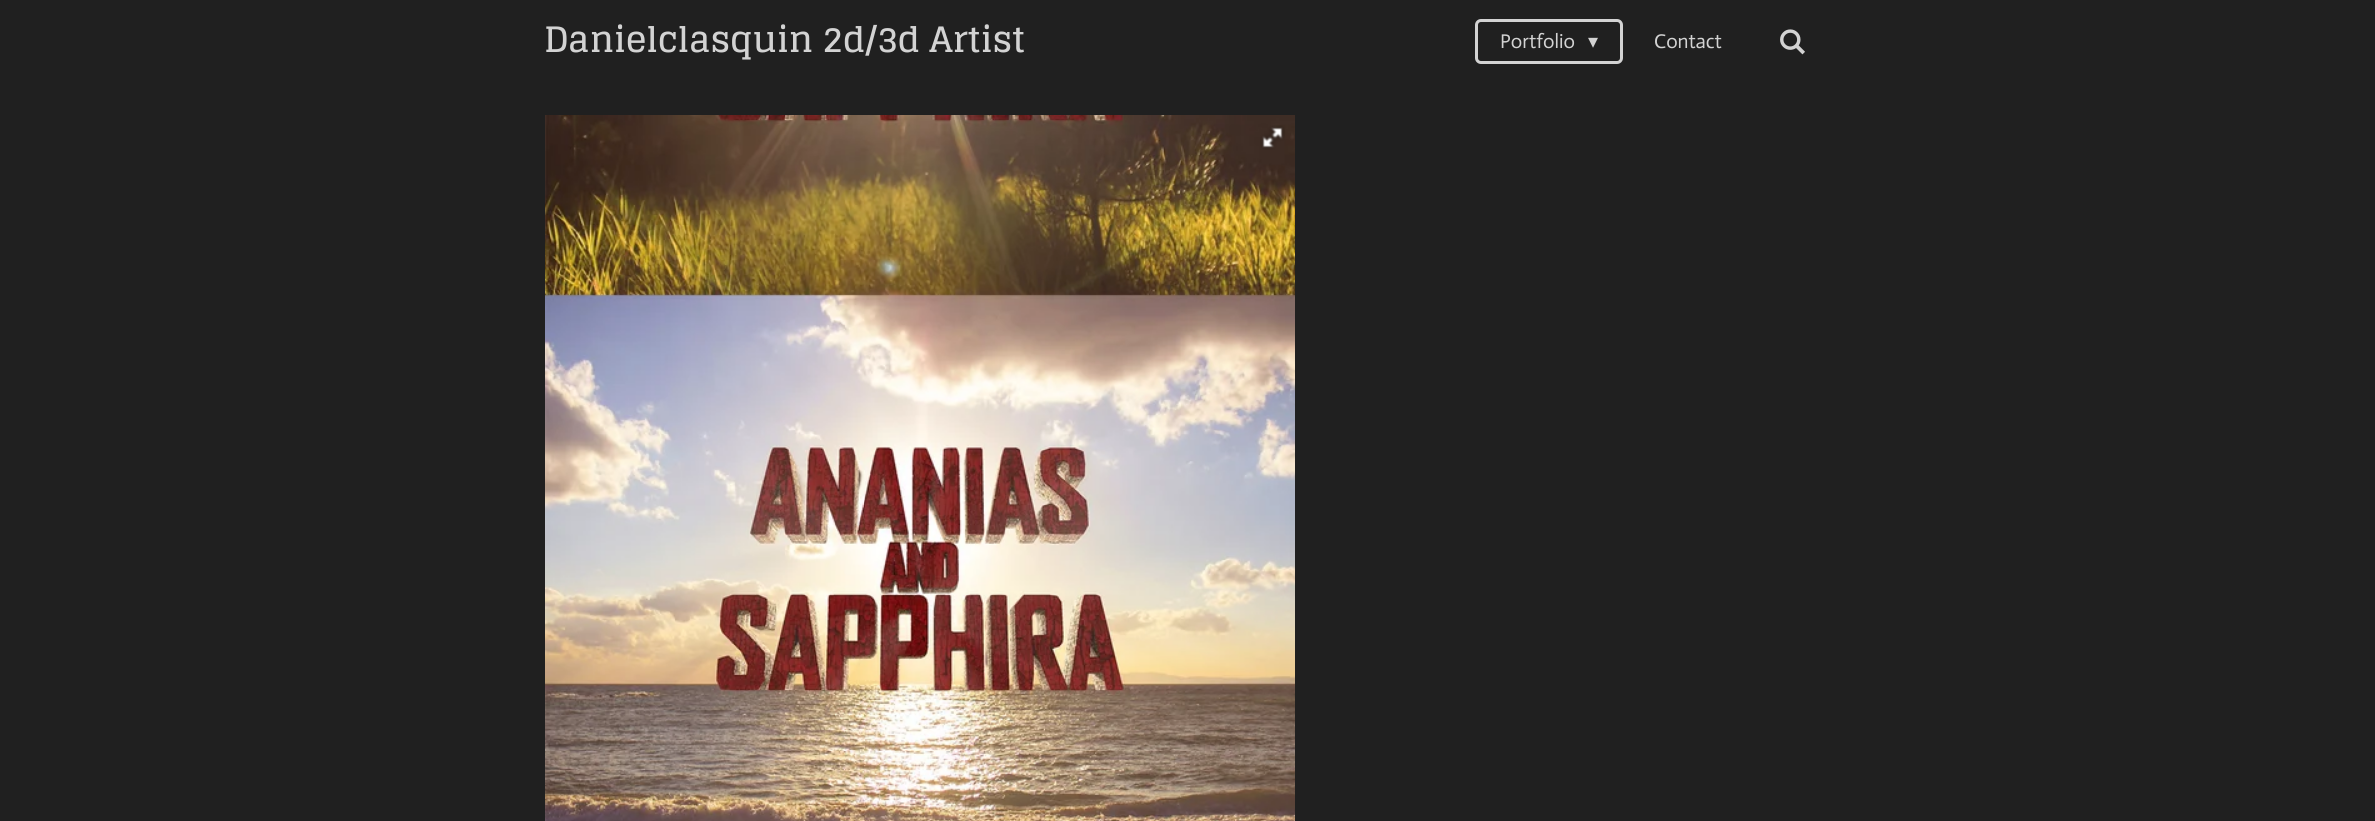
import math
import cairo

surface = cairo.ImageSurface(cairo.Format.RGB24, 2375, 821)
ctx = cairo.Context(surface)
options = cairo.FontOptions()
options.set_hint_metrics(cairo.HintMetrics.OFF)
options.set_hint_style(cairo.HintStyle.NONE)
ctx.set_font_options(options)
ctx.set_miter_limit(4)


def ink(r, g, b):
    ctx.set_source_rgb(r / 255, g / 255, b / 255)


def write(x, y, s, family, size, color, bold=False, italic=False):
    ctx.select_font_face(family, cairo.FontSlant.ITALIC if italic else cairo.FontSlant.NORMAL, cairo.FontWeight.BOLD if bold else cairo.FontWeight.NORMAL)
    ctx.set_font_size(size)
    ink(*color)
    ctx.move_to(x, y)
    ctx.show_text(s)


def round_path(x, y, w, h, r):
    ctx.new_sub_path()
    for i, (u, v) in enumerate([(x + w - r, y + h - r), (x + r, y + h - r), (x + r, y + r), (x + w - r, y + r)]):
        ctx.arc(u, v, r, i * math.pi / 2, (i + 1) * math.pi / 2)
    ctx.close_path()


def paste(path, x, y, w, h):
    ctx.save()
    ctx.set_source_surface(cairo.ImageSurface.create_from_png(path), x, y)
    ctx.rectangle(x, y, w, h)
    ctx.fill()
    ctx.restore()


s1 = dict(family="Glegoo", size=35, color=(211, 211, 211), bold=True)
s2 = dict(family="Actor", size=20, color=(211, 211, 211))
s3 = dict(family="DejaVu Sans", size=20, color=(211, 211, 211))

ink(32, 32, 32)
ctx.paint()
write(544, 52, "Danielclasquin 2d/3d Artist", **s1)
round_path(1476.5, 20.5, 145, 42, 4.5)
ctx.set_line_width(3)
ctx.stroke()
write(1500, 48, "Portfolio", **s2)
write(1588, 48, "▾", **s3)
write(1654, 48, "Contact", **s2)
paste("pic1.png", 1780, 29, 25, 26)
paste("pic2.png", 545, 115, 750, 706)
paste("pic3.png", 1260, 125, 25, 25)
surface.write_to_png("screenshot.png")
